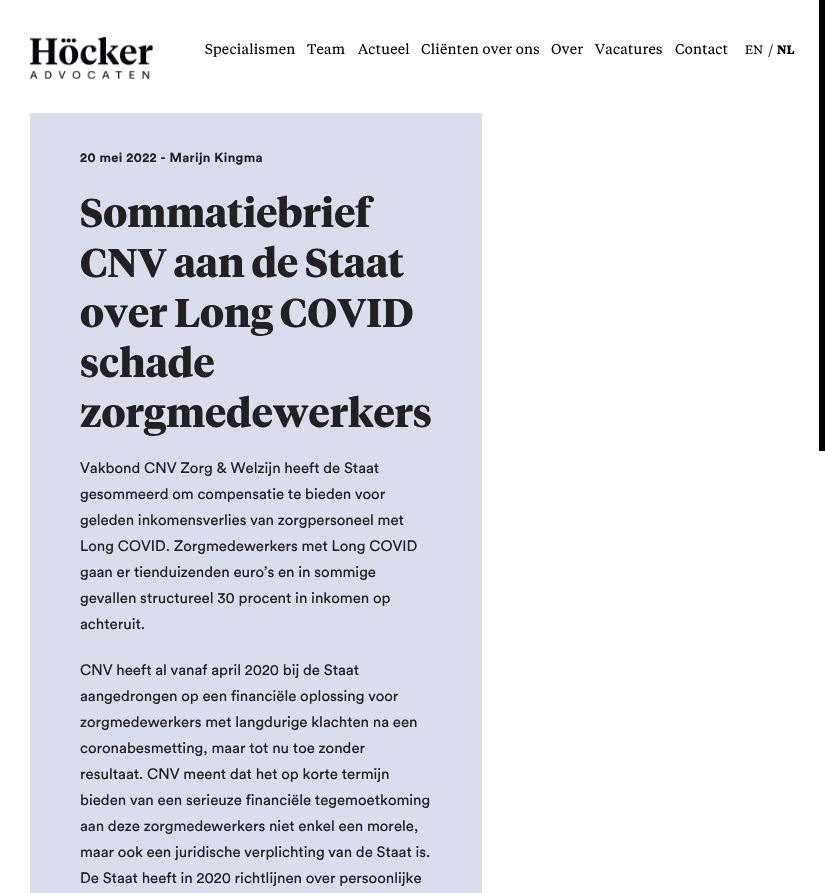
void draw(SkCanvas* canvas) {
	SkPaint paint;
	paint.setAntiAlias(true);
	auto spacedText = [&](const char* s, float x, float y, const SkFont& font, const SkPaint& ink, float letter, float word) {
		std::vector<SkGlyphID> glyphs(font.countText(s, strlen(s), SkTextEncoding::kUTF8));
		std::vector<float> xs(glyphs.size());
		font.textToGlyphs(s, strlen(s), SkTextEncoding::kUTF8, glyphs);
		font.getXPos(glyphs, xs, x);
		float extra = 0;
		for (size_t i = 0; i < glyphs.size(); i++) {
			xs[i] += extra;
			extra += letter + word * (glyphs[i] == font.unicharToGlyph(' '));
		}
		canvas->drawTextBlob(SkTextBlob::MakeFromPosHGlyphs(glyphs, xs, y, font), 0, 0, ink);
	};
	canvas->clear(0xffffffff);
	canvas->drawImageRect(SkImages::DeferredFromEncodedData(SkData::MakeFromFileName("img1.png")), SkRect::MakeXYWH(30, 36, 123, 43), SkSamplingOptions());
	SkFont f1(fontMgr->matchFamilyStyle("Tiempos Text", SkFontStyle::Normal()), 14);
	f1.setSubpixel(true);
	paint.setColor(0xff000000);
	spacedText("Specialismen", 205, 54, f1, paint, 0.25, 0);
	spacedText("Team", 307, 54, f1, paint, 0.25, 0);
	spacedText("Actueel", 358, 54, f1, paint, 0.25, 0);
	spacedText("Cliënten over ons", 421, 54, f1, paint, 0.25, 0);
	spacedText("Over", 551, 54, f1, paint, 0.25, 0);
	spacedText("Vacatures", 595, 54, f1, paint, 0.25, 0);
	spacedText("Contact", 675, 54, f1, paint, 0.25, 0);
	SkFont f2(fontMgr->matchFamilyStyle("Tiempos Text", SkFontStyle::Normal()), 12);
	f2.setSubpixel(true);
	spacedText("EN", 745, 54, f2, paint, 0.25, 0);
	paint.setColor(0xff212121);
	spacedText("/", 768, 55, f1, paint, 0.25, 0);
	SkFont f3(fontMgr->matchFamilyStyle("Tiempos Text", SkFontStyle::Bold()), 12);
	f3.setSubpixel(true);
	paint.setColor(0xff000000);
	spacedText("NL", 777, 54, f3, paint, 0.25, 0);
	canvas->drawRect(SkRect::MakeXYWH(819, 0, 6, 451), paint);
	paint.setColor(0xffd9ddec);
	canvas->drawRect(SkRect::MakeXYWH(30, 113, 452, 780), paint);
	SkFont f4(fontMgr->matchFamilyStyle("Circular", SkFontStyle::Bold()), 13);
	f4.setSubpixel(true);
	paint.setColor(0xff212121);
	spacedText("20 mei 2022 - Marijn Kingma", 80, 162, f4, paint, 0.35, 0);
	SkFont f5(fontMgr->matchFamilyStyle("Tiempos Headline", SkFontStyle::Bold()), 40);
	f5.setSubpixel(true);
	canvas->drawString("Sommatiebrief", 80, 227, f5, paint);
	canvas->drawString("CNV aan de Staat", 80, 277, f5, paint);
	canvas->drawString("over Long COVID", 80, 327, f5, paint);
	canvas->drawString("schade", 80, 377, f5, paint);
	canvas->drawString("zorgmedewerkers", 80, 427, f5, paint);
	SkFont f6(fontMgr->matchFamilyStyle("Circular", SkFontStyle::Normal()), 15);
	f6.setSubpixel(true);
	canvas->drawString("Vakbond CNV Zorg & Welzijn heeft de Staat", 80, 473, f6, paint);
	canvas->drawString("gesommeerd om compensatie te bieden voor", 80, 499, f6, paint);
	canvas->drawString("geleden inkomensverlies van zorgpersoneel met", 80, 525, f6, paint);
	canvas->drawString("Long COVID. Zorgmedewerkers met Long COVID", 80, 551, f6, paint);
	canvas->drawString("gaan er tienduizenden euro’s en in sommige", 80, 577, f6, paint);
	canvas->drawString("gevallen structureel 30 procent in inkomen op", 80, 603, f6, paint);
	canvas->drawString("achteruit.", 80, 629, f6, paint);
	canvas->drawString("CNV heeft al vanaf april 2020 bij de Staat", 80, 675, f6, paint);
	canvas->drawString("aangedrongen op een financiële oplossing voor", 80, 701, f6, paint);
	canvas->drawString("zorgmedewerkers met langdurige klachten na een", 80, 727, f6, paint);
	canvas->drawString("coronabesmetting, maar tot nu toe zonder", 80, 753, f6, paint);
	canvas->drawString("resultaat. CNV meent dat het op korte termijn", 80, 779, f6, paint);
	canvas->drawString("bieden van een serieuze financiële tegemoetkoming", 80, 805, f6, paint);
	canvas->drawString("aan deze zorgmedewerkers niet enkel een morele,", 80, 831, f6, paint);
	canvas->drawString("maar ook een juridische verplichting van de Staat is.", 80, 857, f6, paint);
	canvas->drawString("De Staat heeft in 2020 richtlijnen over persoonlijke", 80, 883, f6, paint);
}
